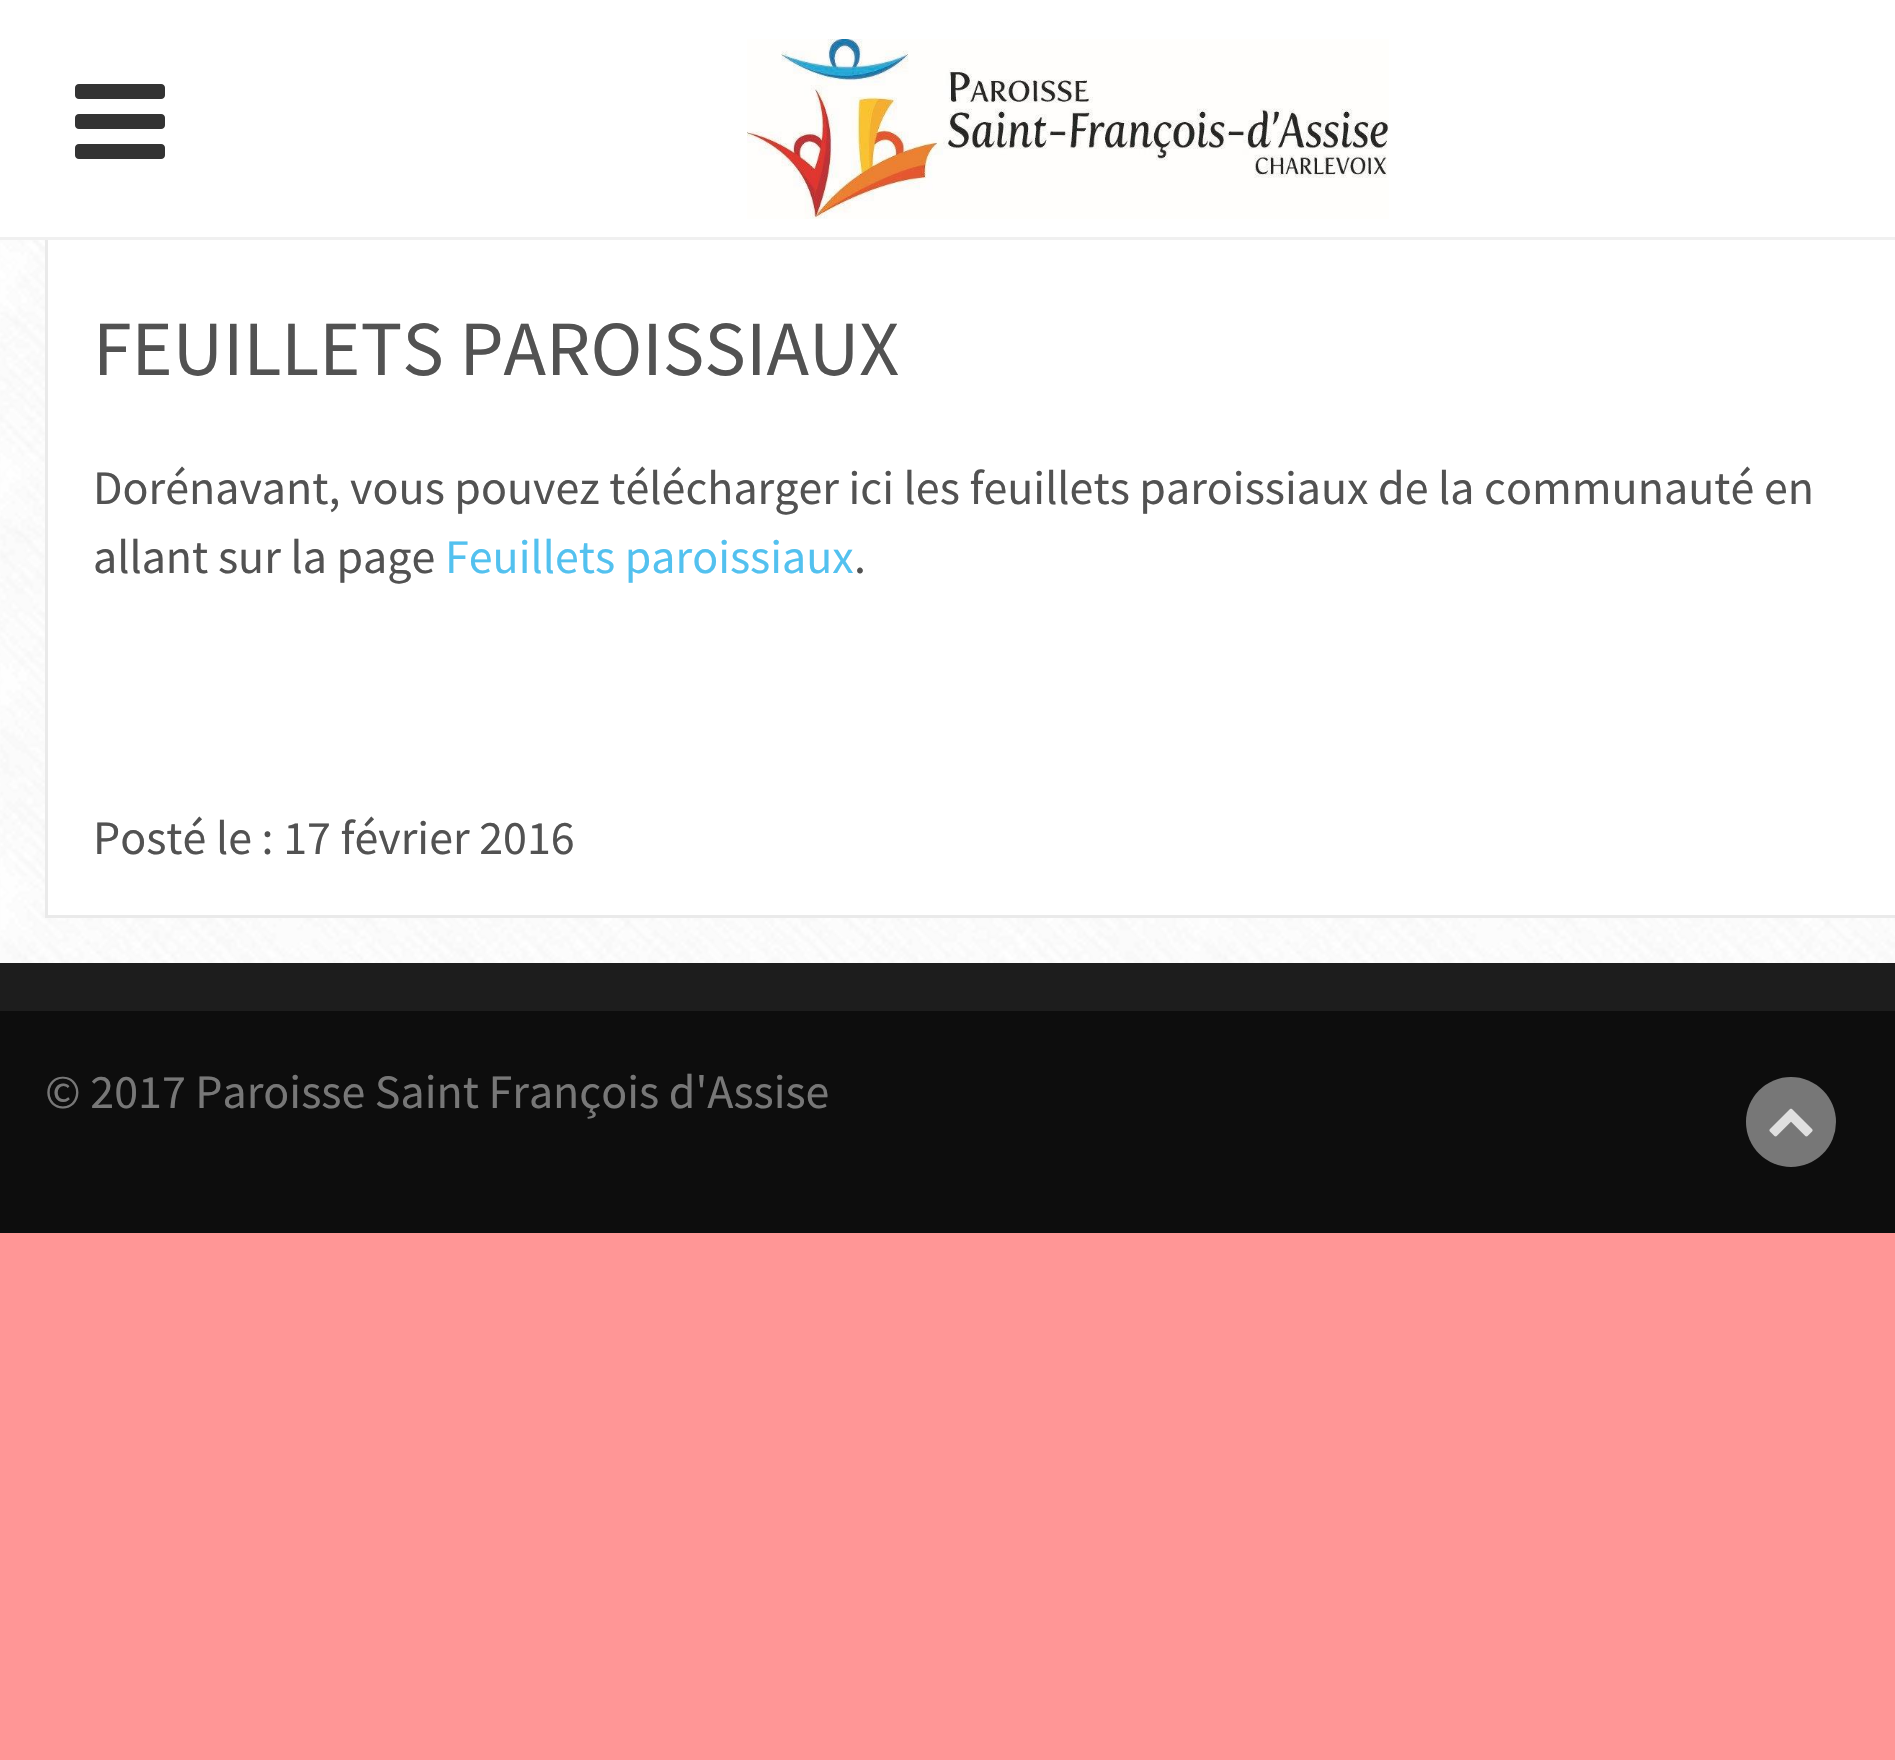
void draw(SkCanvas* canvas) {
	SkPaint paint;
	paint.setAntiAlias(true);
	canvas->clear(0xffff9696);
	canvas->drawImageRect(SkImages::DeferredFromEncodedData(SkData::MakeFromFileName("img3.png")), SkRect::MakeXYWH(0, 240, 1895, 723), SkSamplingOptions());
	paint.setColor(0xffffffff);
	canvas->drawRect(SkRect::MakeXYWH(48, 240, 1847, 675), paint);
	paint.setStroke(true);
	paint.setStrokeWidth(3);
	paint.setColor(0xffeaeaea);
	canvas->drawRect(SkRect::MakeXYWH(46.5, 226.5, 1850, 690), paint);
	paint.setStroke(false);
	paint.setColor(0xffffffff);
	canvas->drawRect(SkRect::MakeXYWH(0, 0, 1895, 237), paint);
	paint.setColor(0xfff0f0f0);
	canvas->drawRect(SkRect::MakeXYWH(0, 237, 1895, 3), paint);
	canvas->drawImageRect(SkImages::DeferredFromEncodedData(SkData::MakeFromFileName("img1.png")), SkRect::MakeXYWH(75, 84, 90, 75), SkSamplingOptions());
	canvas->drawImageRect(SkImages::DeferredFromEncodedData(SkData::MakeFromFileName("img2.png")), SkRect::MakeXYWH(747, 39, 642, 180), SkSamplingOptions());
	SkFont f1(fontMgr->matchFamilyStyle("Source Sans Pro", SkFontStyle::Normal()), 78);
	f1.setSubpixel(true);
	paint.setColor(0xff525252);
	canvas->drawString("FEUILLETS PAROISSIAUX", 93, 375, f1, paint);
	SkFont f2(fontMgr->matchFamilyStyle("Source Sans Pro", SkFontStyle::Normal()), 48);
	f2.setSubpixel(true);
	canvas->drawString("Dorénavant, vous pouvez télécharger ici les feuillets paroissiaux de la communauté en", 93, 504, f2, paint);
	canvas->drawString("allant sur la page", 93, 573, f2, paint);
	paint.setColor(0xff53c1ef);
	canvas->drawString("Feuillets paroissiaux", 445, 573, f2, paint);
	paint.setColor(0xff525252);
	canvas->drawString(".", 854, 573, f2, paint);
	canvas->drawString("Posté le : 17 février 2016", 93, 854, f2, paint);
	paint.setColor(0xff1d1d1d);
	canvas->drawRect(SkRect::MakeXYWH(0, 963, 1895, 48), paint);
	paint.setColor(0xff0d0d0d);
	canvas->drawRect(SkRect::MakeXYWH(0, 1011, 1895, 222), paint);
	paint.setColor(0xff777777);
	canvas->drawString("© 2017 Paroisse Saint François d'Assise", 45, 1108, f2, paint);
	canvas->drawCircle(1791, 1122, 45, paint);
	canvas->drawImageRect(SkImages::DeferredFromEncodedData(SkData::MakeFromFileName("img4.png")), SkRect::MakeXYWH(1769, 1108, 44, 29), SkSamplingOptions());
}
